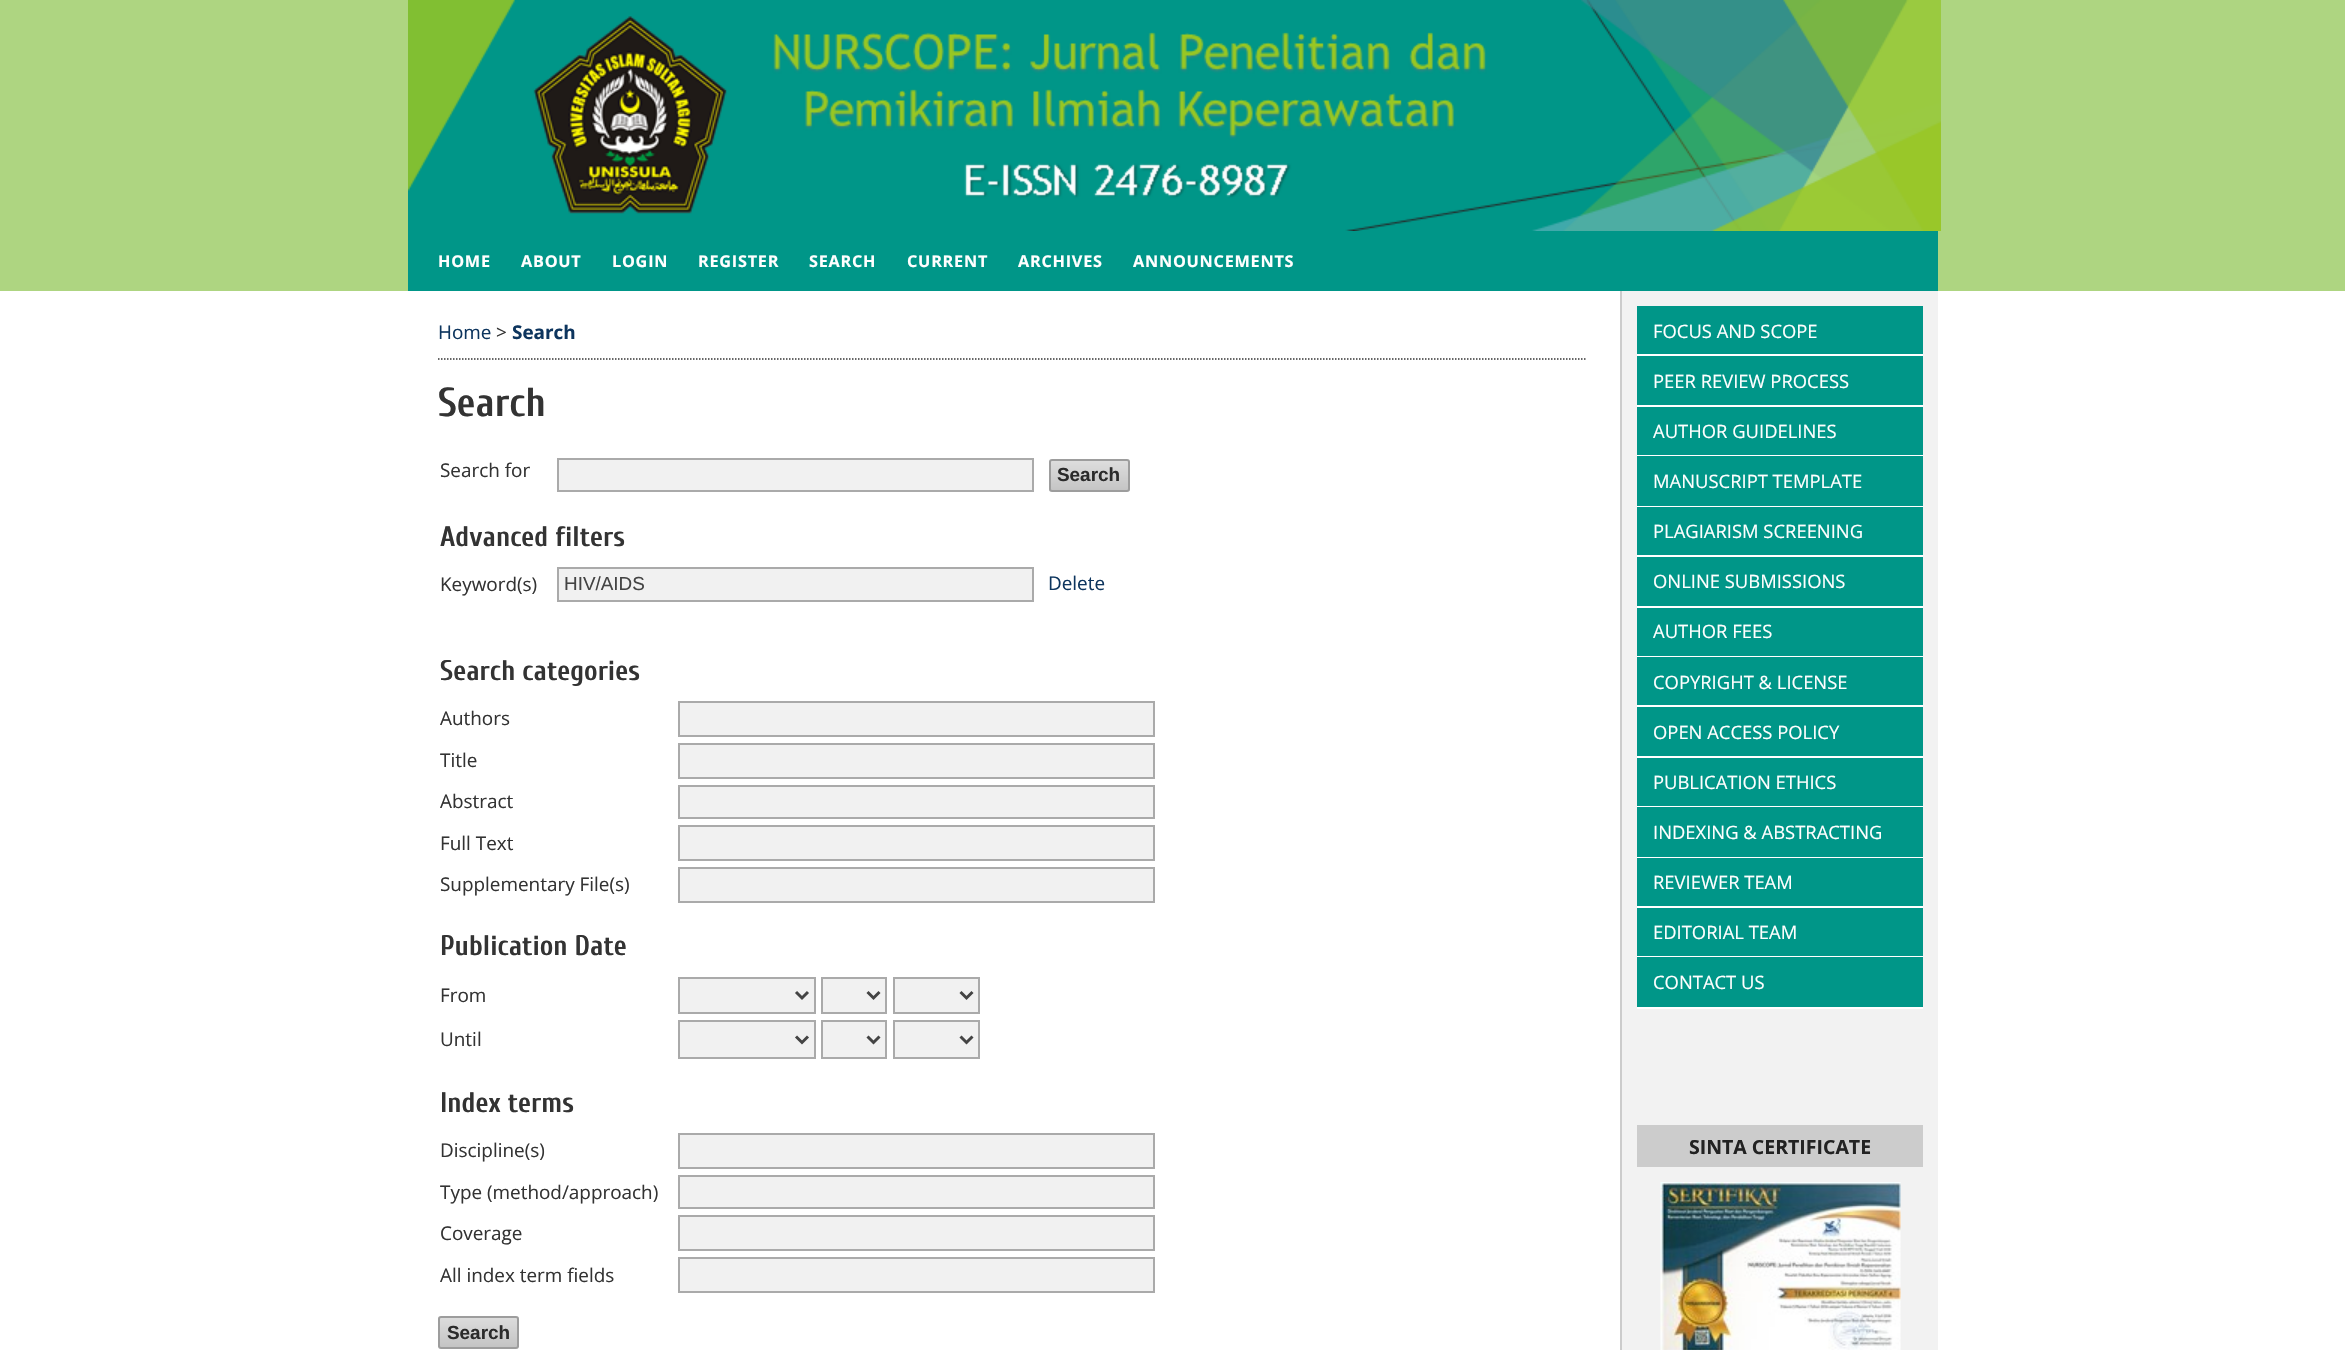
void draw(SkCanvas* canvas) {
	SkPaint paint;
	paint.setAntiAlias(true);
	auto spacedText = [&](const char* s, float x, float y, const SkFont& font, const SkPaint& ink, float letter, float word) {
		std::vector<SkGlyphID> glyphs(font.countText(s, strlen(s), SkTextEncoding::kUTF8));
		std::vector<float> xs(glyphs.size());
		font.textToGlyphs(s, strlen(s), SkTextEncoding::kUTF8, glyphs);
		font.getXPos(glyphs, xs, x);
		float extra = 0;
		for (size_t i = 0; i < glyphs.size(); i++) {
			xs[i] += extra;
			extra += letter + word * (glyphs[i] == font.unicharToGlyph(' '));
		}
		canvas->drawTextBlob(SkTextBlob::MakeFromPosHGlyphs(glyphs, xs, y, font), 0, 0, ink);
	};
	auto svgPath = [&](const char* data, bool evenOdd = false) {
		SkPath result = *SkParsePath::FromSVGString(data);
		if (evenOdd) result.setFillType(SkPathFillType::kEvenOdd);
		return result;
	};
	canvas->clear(0xffffffff);
	paint.setColor(0xffaed581);
	canvas->drawRect(SkRect::MakeXYWH(0, 0, 2345, 291), paint);
	canvas->drawImageRect(SkImages::DeferredFromEncodedData(SkData::MakeFromFileName("img1.png")), SkRect::MakeXYWH(408, 0, 1533, 231), SkSamplingOptions());
	paint.setColor(0xff009688);
	canvas->drawRect(SkRect::MakeXYWH(408, 231, 1530, 60), paint);
	SkFont f1(fontMgr->matchFamilyStyle("Open Sans", SkFontStyle::Bold()), 16.25);
	f1.setSubpixel(true);
	paint.setColor(0xffffffff);
	spacedText("HOME", 438, 267, f1, paint, 0.75, 0);
	spacedText("ABOUT", 521, 267, f1, paint, 0.75, 0);
	spacedText("LOGIN", 612, 267, f1, paint, 0.75, 0);
	spacedText("REGISTER", 698, 267, f1, paint, 0.75, 0);
	spacedText("SEARCH", 809, 267, f1, paint, 0.75, 0);
	spacedText("CURRENT", 907, 267, f1, paint, 0.75, 0);
	spacedText("ARCHIVES", 1018, 267, f1, paint, 0.75, 0);
	spacedText("ANNOUNCEMENTS", 1133, 267, f1, paint, 0.75, 0);
	paint.setStroke(true);
	paint.setStrokeWidth(1.5);
	paint.setColor(0xff333333);
	paint.setPathEffect(SkDashPathEffect::Make({{1.5f, 1.5f}}, 0));
	canvas->drawPath(svgPath("M438 359H1585.5"), paint);
	paint.setPathEffect(nullptr);
	SkFont f2(fontMgr->matchFamilyStyle("Open Sans", SkFontStyle::Normal()), 18.9);
	f2.setSubpixel(true);
	paint.setStroke(false);
	paint.setColor(0xff0d355e);
	canvas->drawString("Home", 438, 339, f2, paint);
	paint.setColor(0xff333333);
	canvas->drawString(">", 496, 339, f2, paint);
	SkFont f3(fontMgr->matchFamilyStyle("Open Sans", SkFontStyle::Bold()), 18.9);
	f3.setSubpixel(true);
	paint.setColor(0xff0d355e);
	canvas->drawString("Search", 512, 339, f3, paint);
	SkFont f4(fontMgr->matchFamilyStyle("Cuprum", SkFontStyle::Bold()), 40.5);
	f4.setSubpixel(true);
	paint.setColor(0xff333333);
	canvas->drawString("Search", 438, 416, f4, paint);
	canvas->drawString("Search for", 440, 477, f2, paint);
	paint.setColor(0xfff1f1f1);
	canvas->drawRect(SkRect::MakeXYWH(558, 459, 475, 32), paint);
	paint.setStroke(true);
	paint.setStrokeWidth(2);
	paint.setColor(0xffaaaaaa);
	canvas->drawRect(SkRect::MakeXYWH(558, 459, 475, 32), paint);
	canvas->save();
	canvas->clipPath(svgPath("M1052 459H1127C1128.5 459 1130 460.5 1130 462V489C1130 490.5 1128.5 492 1127 492H1052C1050.5 492 1049 490.5 1049 489V462C1049 460.5 1050.5 459 1052 459Z"), true);
	paint.setStroke(false);
	{
		const SkColor colors[] = {0xffdddddd, 0xffc4c4c4};
		const float stops[] = {0, 1};
		const SkPoint ends[] = {{1089, 461}, {1089, 491}};
		paint.setShader(SkGradientShader::MakeLinear(ends, colors, stops, 2, SkTileMode::kClamp));
		paint.setAlpha(255);
	}
	canvas->drawRect(SkRect::MakeXYWH(1049, 461, 81, 30), paint);
	canvas->restore();
	paint.setStroke(true);
	paint.setShader(nullptr);
	paint.setColor(0xff9d9d9d);
	canvas->drawRoundRect(SkRect::MakeXYWH(1050, 460, 79, 31), 2, 2, paint);
	SkFont f5(fontMgr->matchFamilyStyle("Liberation Sans", SkFontStyle::Bold()), 18.9);
	f5.setSubpixel(true);
	paint.setStroke(false);
	paint.setColor(0xff2b2b2b);
	canvas->drawString("Search", 1057, 481, f5, paint);
	SkFont f6(fontMgr->matchFamilyStyle("Cuprum", SkFontStyle::Bold()), 28.25);
	f6.setSubpixel(true);
	paint.setColor(0xff333333);
	canvas->drawString("Advanced filters", 440, 546, f6, paint);
	canvas->drawString("Keyword(s)", 440, 591, f2, paint);
	paint.setColor(0xfff1f1f1);
	canvas->drawRect(SkRect::MakeXYWH(558, 568, 475, 33), paint);
	paint.setStroke(true);
	paint.setColor(0xffaaaaaa);
	canvas->drawRect(SkRect::MakeXYWH(558, 568, 475, 33), paint);
	SkFont f7(fontMgr->matchFamilyStyle("Liberation Sans", SkFontStyle::Normal()), 18.9);
	f7.setSubpixel(true);
	paint.setStroke(false);
	paint.setColor(0xff444444);
	canvas->drawString("HIV/AIDS", 564, 590, f7, paint);
	paint.setColor(0xff0d355e);
	canvas->drawString("Delete", 1048, 590, f2, paint);
	paint.setColor(0xff333333);
	canvas->drawString("Search categories", 440, 680, f6, paint);
	canvas->drawString("Authors", 440, 725, f2, paint);
	paint.setColor(0xfff1f1f1);
	canvas->drawRect(SkRect::MakeXYWH(679, 702, 475, 34), paint);
	paint.setStroke(true);
	paint.setColor(0xffaaaaaa);
	canvas->drawRect(SkRect::MakeXYWH(679, 702, 475, 34), paint);
	paint.setStroke(false);
	paint.setColor(0xff333333);
	canvas->drawString("Title", 440, 767, f2, paint);
	paint.setColor(0xfff1f1f1);
	canvas->drawRect(SkRect::MakeXYWH(679, 744, 475, 34), paint);
	paint.setStroke(true);
	paint.setColor(0xffaaaaaa);
	canvas->drawRect(SkRect::MakeXYWH(679, 744, 475, 34), paint);
	paint.setStroke(false);
	paint.setColor(0xff333333);
	canvas->drawString("Abstract", 440, 808, f2, paint);
	paint.setColor(0xfff1f1f1);
	canvas->drawRect(SkRect::MakeXYWH(679, 786, 475, 32), paint);
	paint.setStroke(true);
	paint.setColor(0xffaaaaaa);
	canvas->drawRect(SkRect::MakeXYWH(679, 786, 475, 32), paint);
	paint.setStroke(false);
	paint.setColor(0xff333333);
	canvas->drawString("Full Text", 440, 850, f2, paint);
	paint.setColor(0xfff1f1f1);
	canvas->drawRect(SkRect::MakeXYWH(679, 826, 475, 34), paint);
	paint.setStroke(true);
	paint.setColor(0xffaaaaaa);
	canvas->drawRect(SkRect::MakeXYWH(679, 826, 475, 34), paint);
	paint.setStroke(false);
	paint.setColor(0xff333333);
	canvas->drawString("Supplementary File(s)", 440, 891, f2, paint);
	paint.setColor(0xfff1f1f1);
	canvas->drawRect(SkRect::MakeXYWH(679, 868, 475, 34), paint);
	paint.setStroke(true);
	paint.setColor(0xffaaaaaa);
	canvas->drawRect(SkRect::MakeXYWH(679, 868, 475, 34), paint);
	paint.setStroke(false);
	paint.setColor(0xff333333);
	canvas->drawString("Publication Date", 440, 955, f6, paint);
	canvas->drawString("From", 440, 1002, f2, paint);
	paint.setColor(0xfff1f1f1);
	canvas->drawRect(SkRect::MakeXYWH(679, 978, 136, 35), paint);
	paint.setStroke(true);
	paint.setColor(0xffaaaaaa);
	canvas->drawRect(SkRect::MakeXYWH(679, 978, 136, 35), paint);
	paint.setStrokeWidth(3);
	paint.setColor(0xff444444);
	canvas->drawPath(svgPath("M796 992L802 998L808 992"), paint);
	paint.setStroke(false);
	paint.setColor(0xfff1f1f1);
	canvas->drawRect(SkRect::MakeXYWH(822, 978, 64, 35), paint);
	paint.setStroke(true);
	paint.setStrokeWidth(2);
	paint.setColor(0xffaaaaaa);
	canvas->drawRect(SkRect::MakeXYWH(822, 978, 64, 35), paint);
	paint.setStrokeWidth(3);
	paint.setColor(0xff444444);
	canvas->drawPath(svgPath("M867.5 992L873.5 998L879.5 992"), paint);
	paint.setStroke(false);
	paint.setColor(0xfff1f1f1);
	canvas->drawRect(SkRect::MakeXYWH(894, 978, 85, 35), paint);
	paint.setStroke(true);
	paint.setStrokeWidth(2);
	paint.setColor(0xffaaaaaa);
	canvas->drawRect(SkRect::MakeXYWH(894, 978, 85, 35), paint);
	paint.setStrokeWidth(3);
	paint.setColor(0xff444444);
	canvas->drawPath(svgPath("M960.5 992L966.5 998L972.5 992"), paint);
	paint.setStroke(false);
	paint.setColor(0xff333333);
	canvas->drawString("Until", 440, 1046, f2, paint);
	paint.setColor(0xfff1f1f1);
	canvas->drawRect(SkRect::MakeXYWH(679, 1021, 136, 37), paint);
	paint.setStroke(true);
	paint.setStrokeWidth(2);
	paint.setColor(0xffaaaaaa);
	canvas->drawRect(SkRect::MakeXYWH(679, 1021, 136, 37), paint);
	paint.setStrokeWidth(3);
	paint.setColor(0xff444444);
	canvas->drawPath(svgPath("M796 1036.5L802 1042.5L808 1036.5"), paint);
	paint.setStroke(false);
	paint.setColor(0xfff1f1f1);
	canvas->drawRect(SkRect::MakeXYWH(822, 1021, 64, 37), paint);
	paint.setStroke(true);
	paint.setStrokeWidth(2);
	paint.setColor(0xffaaaaaa);
	canvas->drawRect(SkRect::MakeXYWH(822, 1021, 64, 37), paint);
	paint.setStrokeWidth(3);
	paint.setColor(0xff444444);
	canvas->drawPath(svgPath("M867.5 1036.5L873.5 1042.5L879.5 1036.5"), paint);
	paint.setStroke(false);
	paint.setColor(0xfff1f1f1);
	canvas->drawRect(SkRect::MakeXYWH(894, 1021, 85, 37), paint);
	paint.setStroke(true);
	paint.setStrokeWidth(2);
	paint.setColor(0xffaaaaaa);
	canvas->drawRect(SkRect::MakeXYWH(894, 1021, 85, 37), paint);
	paint.setStrokeWidth(3);
	paint.setColor(0xff444444);
	canvas->drawPath(svgPath("M960.5 1036.5L966.5 1042.5L972.5 1036.5"), paint);
	paint.setStroke(false);
	paint.setColor(0xff333333);
	canvas->drawString("Index terms", 440, 1112, f6, paint);
	canvas->drawString("Discipline(s)", 440, 1157, f2, paint);
	paint.setColor(0xfff1f1f1);
	canvas->drawRect(SkRect::MakeXYWH(679, 1134, 475, 34), paint);
	paint.setStroke(true);
	paint.setStrokeWidth(2);
	paint.setColor(0xffaaaaaa);
	canvas->drawRect(SkRect::MakeXYWH(679, 1134, 475, 34), paint);
	paint.setStroke(false);
	paint.setColor(0xff333333);
	canvas->drawString("Type (method/approach)", 440, 1199, f2, paint);
	paint.setColor(0xfff1f1f1);
	canvas->drawRect(SkRect::MakeXYWH(679, 1176, 475, 32), paint);
	paint.setStroke(true);
	paint.setColor(0xffaaaaaa);
	canvas->drawRect(SkRect::MakeXYWH(679, 1176, 475, 32), paint);
	paint.setStroke(false);
	paint.setColor(0xff333333);
	canvas->drawString("Coverage", 440, 1240, f2, paint);
	paint.setColor(0xfff1f1f1);
	canvas->drawRect(SkRect::MakeXYWH(679, 1216, 475, 34), paint);
	paint.setStroke(true);
	paint.setColor(0xffaaaaaa);
	canvas->drawRect(SkRect::MakeXYWH(679, 1216, 475, 34), paint);
	paint.setStroke(false);
	paint.setColor(0xff333333);
	canvas->drawString("All index term fields", 440, 1282, f2, paint);
	paint.setColor(0xfff1f1f1);
	canvas->drawRect(SkRect::MakeXYWH(679, 1258, 475, 34), paint);
	paint.setStroke(true);
	paint.setColor(0xffaaaaaa);
	canvas->drawRect(SkRect::MakeXYWH(679, 1258, 475, 34), paint);
	canvas->save();
	canvas->clipPath(svgPath("M441 1316H516C517.5 1316 519 1317.5 519 1319V1346C519 1347.5 517.5 1349 516 1349H441C439.5 1349 438 1347.5 438 1346V1319C438 1317.5 439.5 1316 441 1316Z"), true);
	paint.setStroke(false);
	{
		const SkColor colors[] = {0xffdddddd, 0xffc4c4c4};
		const float stops[] = {0, 1};
		const SkPoint ends[] = {{479, 1317}, {479, 1347}};
		paint.setShader(SkGradientShader::MakeLinear(ends, colors, stops, 2, SkTileMode::kClamp));
		paint.setAlpha(255);
	}
	canvas->drawRect(SkRect::MakeXYWH(438, 1317, 81, 30), paint);
	canvas->restore();
	paint.setStroke(true);
	paint.setShader(nullptr);
	paint.setColor(0xff9d9d9d);
	canvas->drawRoundRect(SkRect::MakeXYWH(439, 1317, 79, 31), 2, 2, paint);
	paint.setStroke(false);
	paint.setColor(0xff2b2b2b);
	canvas->drawString("Search", 447, 1339, f5, paint);
	paint.setColor(0xfff2f2f2);
	canvas->drawRect(SkRect::MakeXYWH(1622, 291, 316, 1059), paint);
	paint.setColor(0xffcccccc);
	canvas->drawRect(SkRect::MakeXYWH(1620, 291, 2, 1059), paint);
	paint.setColor(0xff009688);
	canvas->drawRect(SkRect::MakeXYWH(1637, 306, 286, 48), paint);
	paint.setColor(0xffffffff);
	canvas->drawRect(SkRect::MakeXYWH(1637, 354, 286, 2), paint);
	SkFont f8(fontMgr->matchFamilyStyle("Open Sans", SkFontStyle::Normal()), 18.4);
	f8.setSubpixel(true);
	canvas->drawString("FOCUS AND SCOPE", 1653, 338, f8, paint);
	paint.setColor(0xff009688);
	canvas->drawRect(SkRect::MakeXYWH(1637, 356, 286, 49), paint);
	paint.setColor(0xffffffff);
	canvas->drawRect(SkRect::MakeXYWH(1637, 405, 286, 2), paint);
	canvas->drawString("PEER REVIEW PROCESS", 1653, 388, f8, paint);
	paint.setColor(0xff009688);
	canvas->drawRect(SkRect::MakeXYWH(1637, 407, 286, 48), paint);
	paint.setColor(0xffffffff);
	canvas->drawRect(SkRect::MakeXYWH(1637, 455, 286, 1), paint);
	canvas->drawString("AUTHOR GUIDELINES", 1653, 438, f8, paint);
	paint.setColor(0xff009688);
	canvas->drawRect(SkRect::MakeXYWH(1637, 456, 286, 50), paint);
	paint.setColor(0xffffffff);
	canvas->drawRect(SkRect::MakeXYWH(1637, 506, 286, 1), paint);
	canvas->drawString("MANUSCRIPT TEMPLATE", 1653, 488, f8, paint);
	paint.setColor(0xff009688);
	canvas->drawRect(SkRect::MakeXYWH(1637, 507, 286, 48), paint);
	paint.setColor(0xffffffff);
	canvas->drawRect(SkRect::MakeXYWH(1637, 555, 286, 2), paint);
	canvas->drawString("PLAGIARISM SCREENING", 1653, 538, f8, paint);
	paint.setColor(0xff009688);
	canvas->drawRect(SkRect::MakeXYWH(1637, 557, 286, 49), paint);
	paint.setColor(0xffffffff);
	canvas->drawRect(SkRect::MakeXYWH(1637, 606, 286, 2), paint);
	canvas->drawString("ONLINE SUBMISSIONS", 1653, 588, f8, paint);
	paint.setColor(0xff009688);
	canvas->drawRect(SkRect::MakeXYWH(1637, 608, 286, 48), paint);
	paint.setColor(0xffffffff);
	canvas->drawRect(SkRect::MakeXYWH(1637, 656, 286, 1), paint);
	canvas->drawString("AUTHOR FEES", 1653, 638, f8, paint);
	paint.setColor(0xff009688);
	canvas->drawRect(SkRect::MakeXYWH(1637, 657, 286, 48), paint);
	paint.setColor(0xffffffff);
	canvas->drawRect(SkRect::MakeXYWH(1637, 705, 286, 2), paint);
	canvas->drawString("COPYRIGHT & LICENSE", 1653, 689, f8, paint);
	paint.setColor(0xff009688);
	canvas->drawRect(SkRect::MakeXYWH(1637, 707, 286, 49), paint);
	paint.setColor(0xffffffff);
	canvas->drawRect(SkRect::MakeXYWH(1637, 756, 286, 2), paint);
	canvas->drawString("OPEN ACCESS POLICY", 1653, 739, f8, paint);
	paint.setColor(0xff009688);
	canvas->drawRect(SkRect::MakeXYWH(1637, 758, 286, 48), paint);
	paint.setColor(0xffffffff);
	canvas->drawRect(SkRect::MakeXYWH(1637, 806, 286, 1), paint);
	canvas->drawString("PUBLICATION ETHICS", 1653, 789, f8, paint);
	paint.setColor(0xff009688);
	canvas->drawRect(SkRect::MakeXYWH(1637, 807, 286, 50), paint);
	paint.setColor(0xffffffff);
	canvas->drawRect(SkRect::MakeXYWH(1637, 857, 286, 1), paint);
	canvas->drawString("INDEXING & ABSTRACTING", 1653, 839, f8, paint);
	paint.setColor(0xff009688);
	canvas->drawRect(SkRect::MakeXYWH(1637, 858, 286, 48), paint);
	paint.setColor(0xffffffff);
	canvas->drawRect(SkRect::MakeXYWH(1637, 906, 286, 2), paint);
	canvas->drawString("REVIEWER TEAM", 1653, 889, f8, paint);
	paint.setColor(0xff009688);
	canvas->drawRect(SkRect::MakeXYWH(1637, 908, 286, 48), paint);
	paint.setColor(0xffffffff);
	canvas->drawRect(SkRect::MakeXYWH(1637, 956, 286, 1), paint);
	canvas->drawString("EDITORIAL TEAM", 1653, 939, f8, paint);
	paint.setColor(0xff009688);
	canvas->drawRect(SkRect::MakeXYWH(1637, 957, 286, 50), paint);
	paint.setColor(0xffffffff);
	canvas->drawRect(SkRect::MakeXYWH(1637, 1007, 286, 2), paint);
	canvas->drawString("CONTACT US", 1653, 989, f8, paint);
	paint.setColor(0xffcccccc);
	canvas->drawRect(SkRect::MakeXYWH(1637, 1125, 286, 42), paint);
	SkFont f9(fontMgr->matchFamilyStyle("Open Sans", SkFontStyle::Bold()), 19.5);
	f9.setSubpixel(true);
	paint.setColor(0xff222222);
	canvas->drawString("SINTA CERTIFICATE", 1689, 1154, f9, paint);
	canvas->drawImageRect(SkImages::DeferredFromEncodedData(SkData::MakeFromFileName("img2.png")), SkRect::MakeXYWH(1660, 1182, 241, 168), SkSamplingOptions());
}
